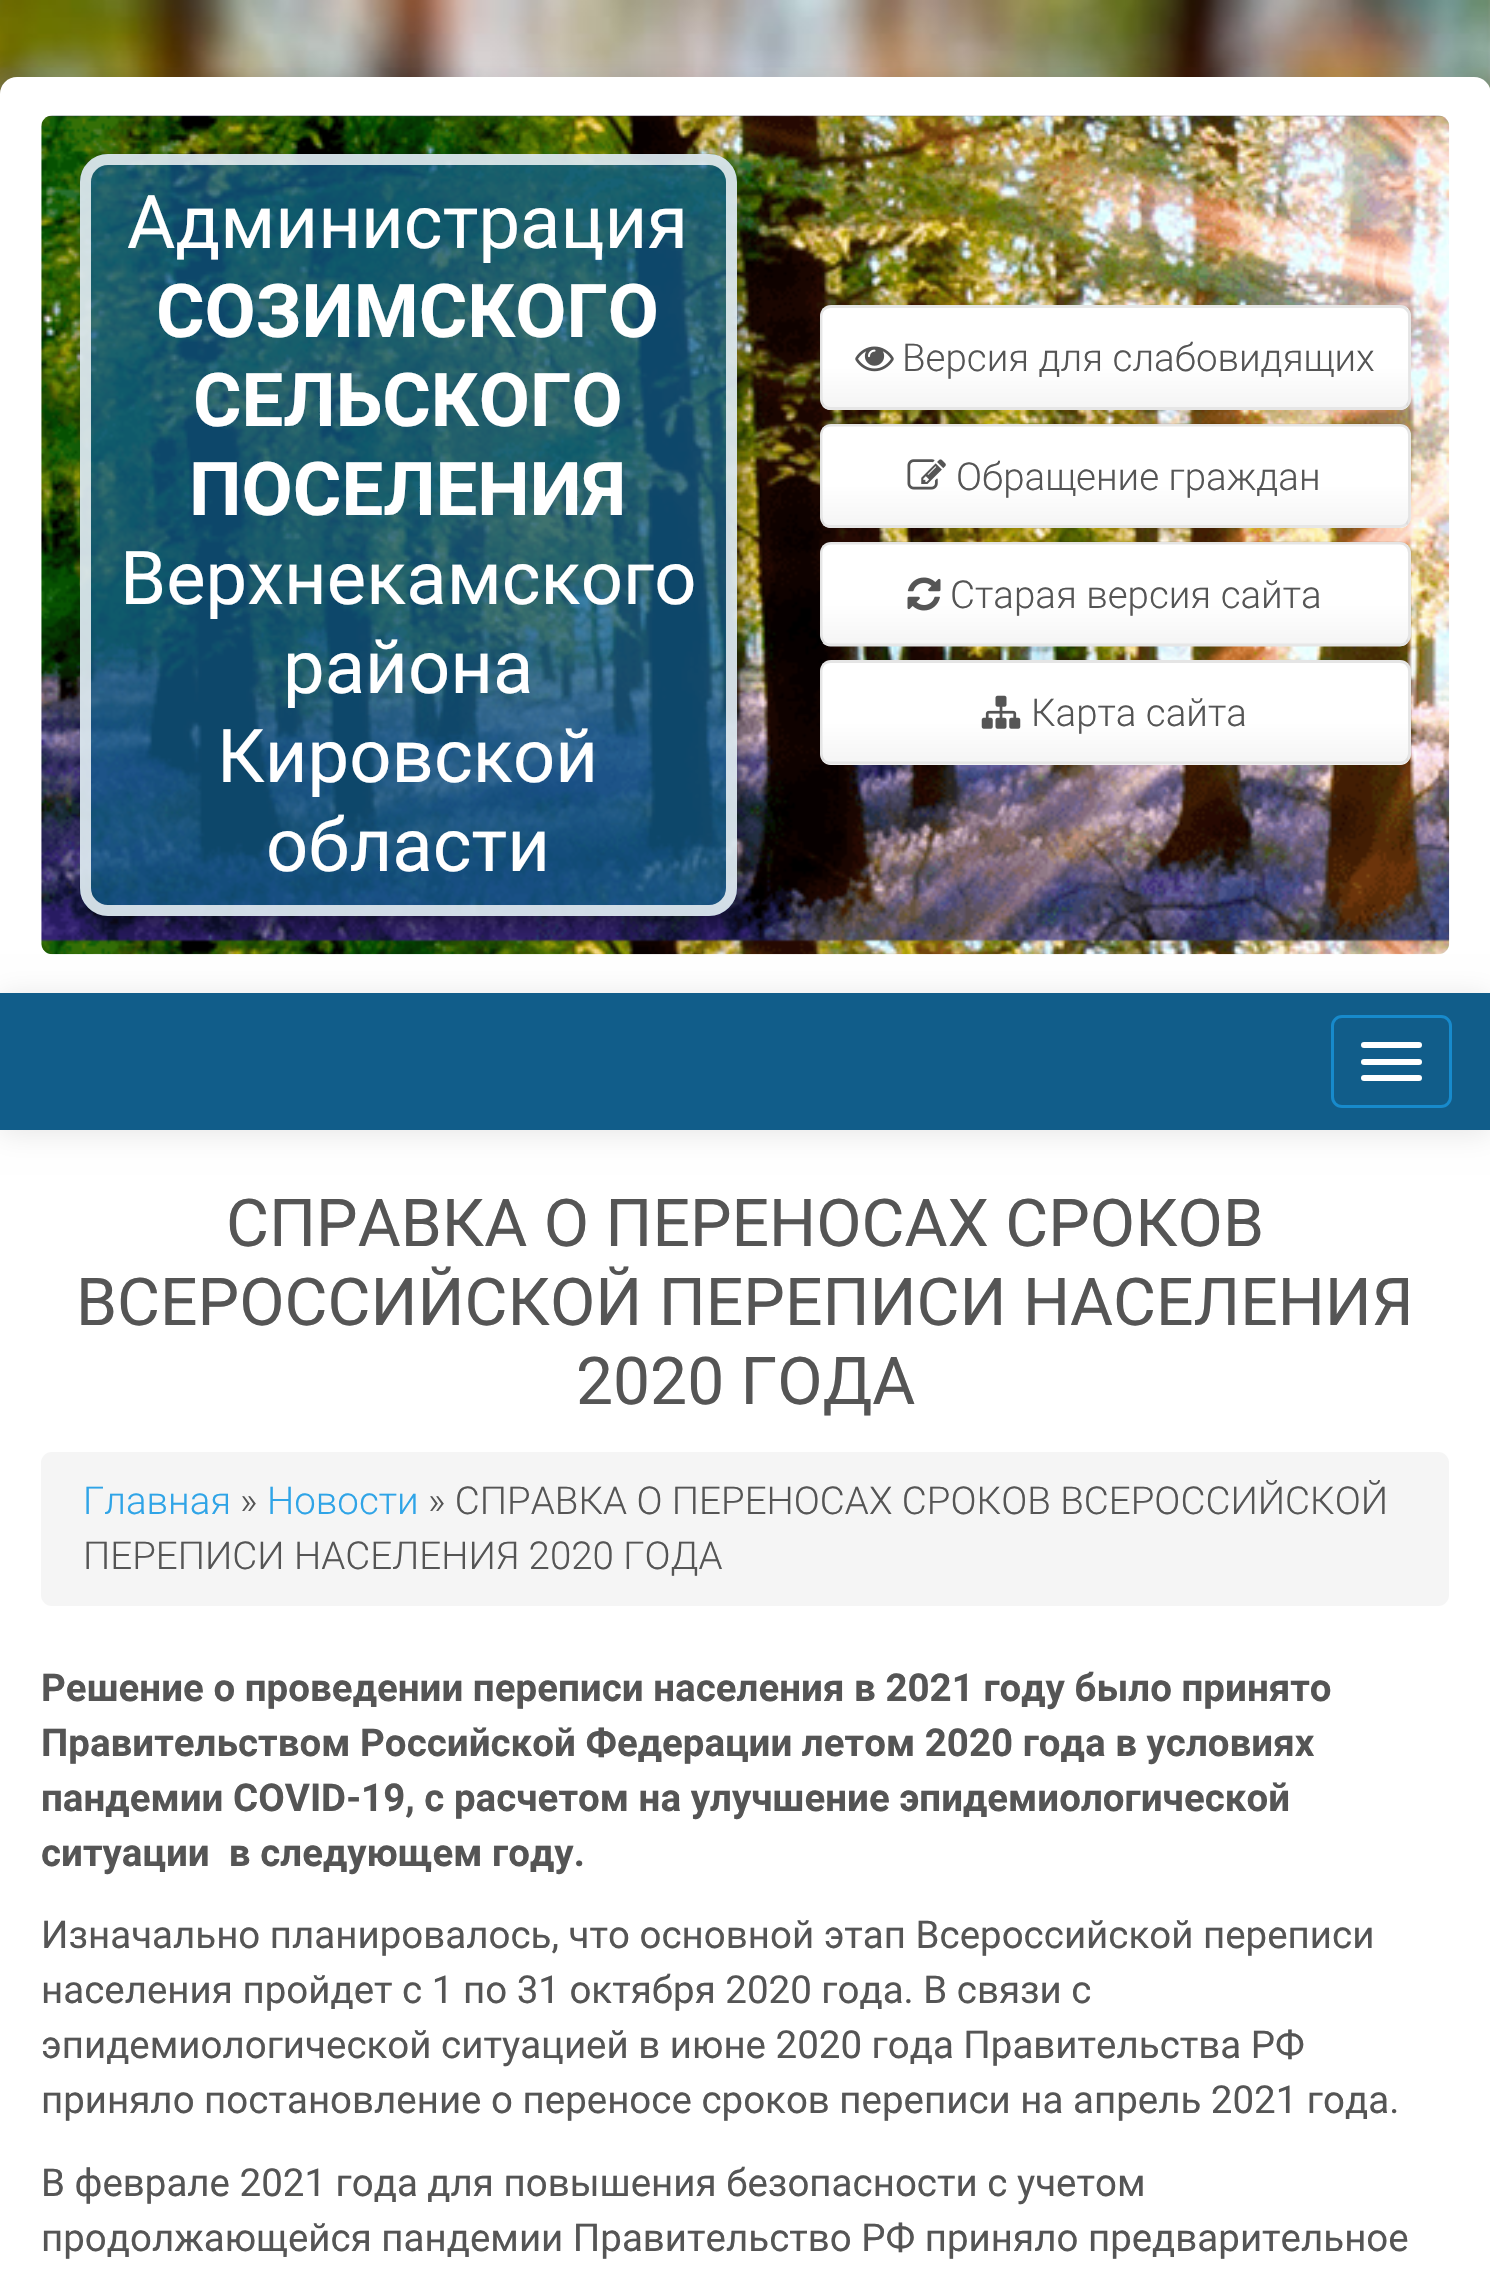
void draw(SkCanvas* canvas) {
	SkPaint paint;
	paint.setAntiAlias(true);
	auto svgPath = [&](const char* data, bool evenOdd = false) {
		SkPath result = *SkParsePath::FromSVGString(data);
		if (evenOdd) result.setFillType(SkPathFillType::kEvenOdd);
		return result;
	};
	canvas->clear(0xffffffff);
	canvas->drawImageRect(SkImages::DeferredFromEncodedData(SkData::MakeFromFileName("img1.png")), SkRect::MakeXYWH(0, 0, 1490, 94), SkSamplingOptions());
	paint.setColor(0x26000000);
	paint.setMaskFilter(SkMaskFilter::MakeBlur(kNormal_SkBlurStyle, 14));
	canvas->drawRoundRect(SkRect::MakeXYWH(0, 83, 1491, 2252), 17, 17, paint);
	paint.setMaskFilter(nullptr);
	paint.setColor(0xffffffff);
	canvas->drawRoundRect(SkRect::MakeXYWH(0, 77, 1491, 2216), 17, 17, paint);
	canvas->drawImageRect(SkImages::DeferredFromEncodedData(SkData::MakeFromFileName("img2.png")), SkRect::MakeXYWH(41, 115, 1409, 840), SkSamplingOptions());
	canvas->save();
	canvas->clipPath(svgPath("M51 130H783V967H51ZM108 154H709C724.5 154 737 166.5 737 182V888C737 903.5 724.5 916 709 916H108C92.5 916 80 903.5 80 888V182C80 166.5 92.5 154 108 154Z", true), true);
	paint.setColor(0x80000000);
	paint.setMaskFilter(SkMaskFilter::MakeBlur(kNormal_SkBlurStyle, 14));
	canvas->drawRoundRect(SkRect::MakeXYWH(94, 173, 646, 751), 22, 22, paint);
	paint.setMaskFilter(nullptr);
	canvas->restore();
	paint.setColor(0xc4115d8a);
	canvas->drawRoundRect(SkRect::MakeXYWH(80, 154, 657, 762), 28, 28, paint);
	paint.setStroke(true);
	paint.setStrokeWidth(11);
	paint.setColor(0xccffffff);
	canvas->drawRoundRect(SkRect::MakeXYWH(85.5, 159.5, 646, 751), 22.5, 22.5, paint);
	SkFont f1(fontMgr->matchFamilyStyle("Roboto", SkFontStyle::Normal()), 74.25);
	f1.setSubpixel(true);
	paint.setStroke(false);
	paint.setColor(0xffffffff);
	canvas->drawString("Администрация", 127, 248, f1, paint);
	SkFont f2(fontMgr->matchFamilyStyle("Roboto", SkFontStyle::Bold()), 74.25);
	f2.setSubpixel(true);
	canvas->drawString("СОЗИМСКОГО", 156, 337, f2, paint);
	canvas->drawString("СЕЛЬСКОГО", 193, 426, f2, paint);
	canvas->drawString("ПОСЕЛЕНИЯ", 189, 515, f2, paint);
	canvas->drawString("Верхнекамского", 120, 604, f1, paint);
	canvas->drawString("района", 283, 693, f1, paint);
	canvas->drawString("Кировской", 217, 782, f1, paint);
	canvas->drawString("области", 266, 871, f1, paint);
	canvas->drawRoundRect(SkRect::MakeXYWH(820, 305, 591, 105), 11, 11, paint);
	canvas->save();
	canvas->clipPath(svgPath("M831 305H1400C1406 305 1411 310 1411 316V399C1411 405 1406 410 1400 410H831C825 410 820 405 820 399V316C820 310 825 305 831 305Z"), true);
	{
		const SkColor colors[] = {0xffffffff, 0xffffffff, 0xfff5f5f5};
		const float stops[] = {0, 0.6, 1};
		const SkPoint ends[] = {{1115, 308}, {1115, 407}};
		paint.setShader(SkGradientShader::MakeLinear(ends, colors, stops, 3, SkTileMode::kClamp));
		paint.setAlpha(255);
	}
	canvas->drawRect(SkRect::MakeXYWH(822, 308, 586, 99), paint);
	canvas->restore();
	paint.setStroke(true);
	paint.setStrokeWidth(2.8);
	paint.setShader(nullptr);
	paint.setColor(0xffe6e6e6);
	canvas->drawPath(svgPath("M1406.5 405.5C1405 407.5 1402.5 408.5 1400 408.5H830.5C828 408.5 825.5 407.5 823.5 405.5"), paint);
	paint.setColor(0x1a000000);
	canvas->drawPath(svgPath("M823.5 405.5C822 404 821 401.5 821 399V316C821 313.5 822 311 823.5 309.5C825.5 307.5 828 306.5 830.5 306.5H1400C1402.5 306.5 1405 307.5 1406.5 309.5C1408.5 311 1409.5 313.5 1409.5 316V399C1409.5 401.5 1408.5 404 1406.5 405.5"), paint);
	canvas->drawImageRect(SkImages::DeferredFromEncodedData(SkData::MakeFromFileName("img3.png")), SkRect::MakeXYWH(855, 346, 39, 26), SkSamplingOptions());
	SkFont f3(fontMgr->matchFamilyStyle("Roboto", SkFontStyle(300, SkFontStyle::kNormal_Width, SkFontStyle::kUpright_Slant)), 38.5);
	f3.setSubpixel(true);
	paint.setStroke(false);
	paint.setColor(0xff555555);
	canvas->drawString("Версия для слабовидящих", 902, 371, f3, paint);
	paint.setColor(0xffffffff);
	canvas->drawRoundRect(SkRect::MakeXYWH(820, 424, 591, 104), 11, 11, paint);
	canvas->save();
	canvas->clipPath(svgPath("M831 424H1400C1406 424 1411 429 1411 435V517C1411 523 1406 528 1400 528H831C825 528 820 523 820 517V435C820 429 825 424 831 424Z"), true);
	{
		const SkColor colors[] = {0xffffffff, 0xffffffff, 0xfff5f5f5};
		const float stops[] = {0, 0.6, 1};
		const SkPoint ends[] = {{1115, 426}, {1115, 525}};
		paint.setShader(SkGradientShader::MakeLinear(ends, colors, stops, 3, SkTileMode::kClamp));
		paint.setAlpha(255);
	}
	canvas->drawRect(SkRect::MakeXYWH(822, 426, 586, 99), paint);
	canvas->restore();
	paint.setStroke(true);
	paint.setShader(nullptr);
	paint.setColor(0xffe6e6e6);
	canvas->drawPath(svgPath("M1406.5 524C1405 525.5 1402.5 526.5 1400 526.5H830.5C828 526.5 825.5 525.5 823.5 524"), paint);
	paint.setColor(0x1a000000);
	canvas->drawPath(svgPath("M823.5 524C822 522 821 519.5 821 517V434.5C821 432 822 429.5 823.5 427.5C825.5 426 828 425 830.5 425H1400C1402.5 425 1405 426 1406.5 427.5C1408.5 429.5 1409.5 432 1409.5 434.5V517C1409.5 519.5 1408.5 522 1406.5 524"), paint);
	canvas->drawImageRect(SkImages::DeferredFromEncodedData(SkData::MakeFromFileName("img4.png")), SkRect::MakeXYWH(907, 459, 39, 31), SkSamplingOptions());
	paint.setStroke(false);
	paint.setColor(0xff555555);
	canvas->drawString("Обращение граждан", 956, 490, f3, paint);
	paint.setColor(0xffffffff);
	canvas->drawRoundRect(SkRect::MakeXYWH(820, 542, 591, 104), 11, 11, paint);
	canvas->save();
	canvas->clipPath(svgPath("M831 542H1400C1406 542 1411 547 1411 553V635C1411 641 1406 646 1400 646H831C825 646 820 641 820 635V553C820 547 825 542 831 542Z"), true);
	{
		const SkColor colors[] = {0xffffffff, 0xffffffff, 0xfff5f5f5};
		const float stops[] = {0, 0.6, 1};
		const SkPoint ends[] = {{1115, 545}, {1115, 644}};
		paint.setShader(SkGradientShader::MakeLinear(ends, colors, stops, 3, SkTileMode::kClamp));
		paint.setAlpha(255);
	}
	canvas->drawRect(SkRect::MakeXYWH(822, 545, 586, 99), paint);
	canvas->restore();
	paint.setStroke(true);
	paint.setShader(nullptr);
	paint.setColor(0xffe6e6e6);
	canvas->drawPath(svgPath("M1406.5 642C1405 644 1402.5 645 1400 645H830.5C828 645 825.5 644 823.5 642"), paint);
	paint.setColor(0x1a000000);
	canvas->drawPath(svgPath("M823.5 642C822 640.5 821 638 821 635V553C821 550 822 547.5 823.5 546C825.5 544 828 543 830.5 543H1400C1402.5 543 1405 544 1406.5 546C1408.5 547.5 1409.5 550 1409.5 553V635C1409.5 638 1408.5 640.5 1406.5 642"), paint);
	canvas->drawImageRect(SkImages::DeferredFromEncodedData(SkData::MakeFromFileName("img5.png")), SkRect::MakeXYWH(907, 577, 34, 34), SkSamplingOptions());
	paint.setStroke(false);
	paint.setColor(0xff555555);
	canvas->drawString("Старая версия сайта", 950, 608, f3, paint);
	paint.setColor(0xffffffff);
	canvas->drawRoundRect(SkRect::MakeXYWH(820, 660, 591, 105), 11, 11, paint);
	canvas->save();
	canvas->clipPath(svgPath("M831 660H1400C1406 660 1411 665 1411 671V754C1411 760 1406 765 1400 765H831C825 765 820 760 820 754V671C820 665 825 660 831 660Z"), true);
	{
		const SkColor colors[] = {0xffffffff, 0xffffffff, 0xfff5f5f5};
		const float stops[] = {0, 0.6, 1};
		const SkPoint ends[] = {{1115, 663}, {1115, 762}};
		paint.setShader(SkGradientShader::MakeLinear(ends, colors, stops, 3, SkTileMode::kClamp));
		paint.setAlpha(255);
	}
	canvas->drawRect(SkRect::MakeXYWH(822, 663, 586, 99), paint);
	canvas->restore();
	paint.setStroke(true);
	paint.setShader(nullptr);
	paint.setColor(0xffe6e6e6);
	canvas->drawPath(svgPath("M1406.5 760.5C1405 762 1402.5 763 1400 763H830.5C828 763 825.5 762 823.5 760.5"), paint);
	paint.setColor(0x1a000000);
	canvas->drawPath(svgPath("M823.5 760.5C822 758.5 821 756 821 753.5V671C821 668.5 822 666 823.5 664C825.5 662.5 828 661.5 830.5 661.5H1400C1402.5 661.5 1405 662.5 1406.5 664C1408.5 666 1409.5 668.5 1409.5 671V753.5C1409.5 756 1408.5 758.5 1406.5 760.5"), paint);
	canvas->drawImageRect(SkImages::DeferredFromEncodedData(SkData::MakeFromFileName("img6.png")), SkRect::MakeXYWH(981, 695, 40, 34), SkSamplingOptions());
	paint.setStroke(false);
	paint.setColor(0xff555555);
	canvas->drawString("Карта сайта", 1031, 726, f3, paint);
	paint.setColor(0x1a000000);
	paint.setMaskFilter(SkMaskFilter::MakeBlur(kNormal_SkBlurStyle, 14));
	canvas->drawRect(SkRect::MakeXYWH(0, 996, 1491, 137), paint);
	paint.setMaskFilter(nullptr);
	paint.setColor(0xff115d8a);
	canvas->drawRect(SkRect::MakeXYWH(0, 993, 1490, 137), paint);
	paint.setStroke(true);
	paint.setStrokeWidth(3);
	paint.setColor(0xff178acc);
	canvas->drawRoundRect(SkRect::MakeXYWH(1332.5, 1016.5, 118, 90), 9.5, 9.5, paint);
	paint.setStroke(false);
	paint.setColor(0xffffffff);
	canvas->drawRoundRect(SkRect::MakeXYWH(1361, 1042, 61, 6), 3, 3, paint);
	canvas->drawRoundRect(SkRect::MakeXYWH(1361, 1059, 61, 6), 3, 3, paint);
	canvas->drawRoundRect(SkRect::MakeXYWH(1361, 1075, 61, 6), 3, 3, paint);
	SkFont f4(fontMgr->matchFamilyStyle("Roboto", SkFontStyle::Normal()), 66);
	f4.setSubpixel(true);
	paint.setColor(0xff555555);
	canvas->drawString("СПРАВКА О ПЕРЕНОСАХ СРОКОВ", 226, 1246, f4, paint);
	canvas->drawString("ВСЕРОССИЙСКОЙ ПЕРЕПИСИ НАСЕЛЕНИЯ", 76, 1325, f4, paint);
	canvas->drawString("2020 ГОДА", 576, 1404, f4, paint);
	paint.setColor(0xfff5f5f5);
	canvas->drawRoundRect(SkRect::MakeXYWH(41, 1452, 1408, 154), 11, 11, paint);
	paint.setColor(0xff2fa4e7);
	canvas->drawString("Главная", 83, 1514, f3, paint);
	paint.setColor(0xff555555);
	canvas->drawString("»", 240, 1514, f3, paint);
	paint.setColor(0xff2fa4e7);
	canvas->drawString("Новости", 267, 1514, f3, paint);
	paint.setColor(0xff555555);
	canvas->drawString("» СПРАВКА О ПЕРЕНОСАХ СРОКОВ ВСЕРОССИЙСКОЙ", 428, 1514, f3, paint);
	canvas->drawString("ПЕРЕПИСИ НАСЕЛЕНИЯ 2020 ГОДА", 83, 1569, f3, paint);
	SkFont f5(fontMgr->matchFamilyStyle("Roboto", SkFontStyle::Bold()), 38.5);
	f5.setSubpixel(true);
	canvas->drawString("Решение о проведении переписи населения в 2021 году было принято", 41, 1701, f5, paint);
	canvas->drawString("Правительством Российской Федерации летом 2020 года в условиях", 41, 1756, f5, paint);
	canvas->drawString("пандемии COVID-19, с расчетом на улучшение эпидемиологической", 41, 1811, f5, paint);
	canvas->drawString("ситуации  в следующем году.", 41, 1866, f5, paint);
	SkFont f6(fontMgr->matchFamilyStyle("Roboto", SkFontStyle::Normal()), 38.5);
	f6.setSubpixel(true);
	canvas->drawString("Изначально планировалось, что основной этап Всероссийской переписи", 41, 1948, f6, paint);
	canvas->drawString("населения пройдет с 1 по 31 октября 2020 года. В связи с", 41, 2003, f6, paint);
	canvas->drawString("эпидемиологической ситуацией в июне 2020 года Правительства РФ", 41, 2058, f6, paint);
	canvas->drawString("приняло постановление о переносе сроков переписи на апрель 2021 года.", 41, 2113, f6, paint);
	canvas->drawString("В феврале 2021 года для повышения безопасности с учетом", 41, 2196, f6, paint);
	canvas->drawString("продолжающейся пандемии Правительство РФ приняло предварительное", 41, 2251, f6, paint);
}
